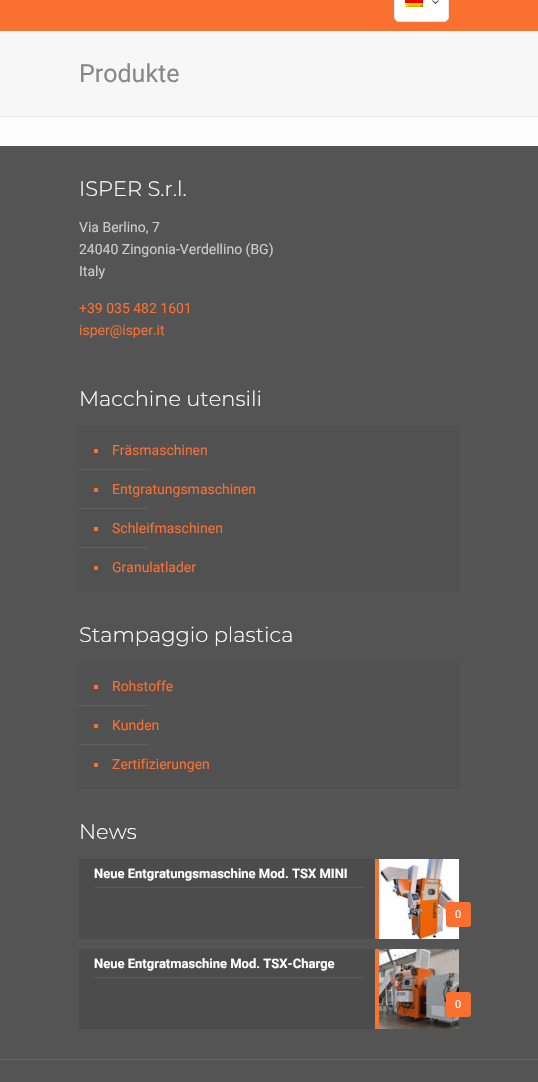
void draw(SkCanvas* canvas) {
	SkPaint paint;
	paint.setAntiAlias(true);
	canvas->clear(0xfffcfcfc);
	paint.setColor(0xfffa7031);
	canvas->drawRect(SkRect::MakeXYWH(0, 0, 538, 31), paint);
	paint.setColor(0xffffffff);
	canvas->drawRoundRect(SkRect::MakeXYWH(394.5, -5.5, 54, 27), 4.5, 4.5, paint);
	paint.setStroke(true);
	paint.setStrokeWidth(1);
	paint.setColor(0xffe8e8e8);
	canvas->drawRoundRect(SkRect::MakeXYWH(394.5, -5.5, 54, 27), 4.5, 4.5, paint);
	canvas->drawImageRect(SkImages::DeferredFromEncodedData(SkData::MakeFromFileName("img1.png")), SkRect::MakeXYWH(405, 0, 18, 7), SkSamplingOptions());
	canvas->drawImageRect(SkImages::DeferredFromEncodedData(SkData::MakeFromFileName("img2.png")), SkRect::MakeXYWH(432, 0, 7, 4), SkSamplingOptions());
	paint.setStroke(false);
	paint.setColor(0xfff7f7f7);
	canvas->drawRect(SkRect::MakeXYWH(0, 31, 538, 85), paint);
	SkFont f1(fontMgr->matchFamilyStyle("Roboto", SkFontStyle::Normal()), 25);
	f1.setSubpixel(true);
	paint.setColor(0xff888888);
	canvas->drawString("Produkte", 79, 82, f1, paint);
	canvas->drawImageRect(SkImages::DeferredFromEncodedData(SkData::MakeFromFileName("img3.png")), SkRect::MakeXYWH(0, 116, 538, 2), SkSamplingOptions());
	paint.setColor(0xff545454);
	canvas->drawRect(SkRect::MakeXYWH(0, 146, 538, 936), paint);
	SkFont f2(fontMgr->matchFamilyStyle("Montserrat", SkFontStyle(300, SkFontStyle::kNormal_Width, SkFontStyle::kUpright_Slant)), 21);
	f2.setSubpixel(true);
	paint.setColor(0xffffffff);
	canvas->drawString("ISPER S.r.l.", 79, 196, f2, paint);
	SkFont f3(fontMgr->matchFamilyStyle("Roboto", SkFontStyle::Normal()), 14);
	f3.setSubpixel(true);
	paint.setColor(0xffcccccc);
	canvas->drawString("Via Berlino, 7", 79, 232, f3, paint);
	canvas->drawString("24040 Zingonia-Verdellino (BG)", 79, 254, f3, paint);
	canvas->drawString("Italy", 79, 276, f3, paint);
	paint.setColor(0xfffa7031);
	canvas->drawString("+39 035 482 1601", 79, 313, f3, paint);
	canvas->drawString("isper@isper.it", 79, 335, f3, paint);
	paint.setColor(0xffffffff);
	canvas->drawString("Macchine utensili", 79, 406, f2, paint);
	paint.setColor(0xff515151);
	canvas->drawRect(SkRect::MakeXYWH(79, 426, 380, 166), paint);
	paint.setColor(0xfffa7031);
	canvas->drawRect(SkRect::MakeXYWH(94, 449, 4, 4), paint);
	canvas->drawString("Fräsmaschinen", 112, 455, f3, paint);
	paint.setColor(0xff5f5f5f);
	canvas->drawRect(SkRect::MakeXYWH(79, 469, 70, 1), paint);
	paint.setColor(0xfffa7031);
	canvas->drawRect(SkRect::MakeXYWH(94, 488, 4, 4), paint);
	canvas->drawString("Entgratungsmaschinen", 112, 494, f3, paint);
	paint.setColor(0xff5f5f5f);
	canvas->drawRect(SkRect::MakeXYWH(79, 508, 70, 1), paint);
	paint.setColor(0xfffa7031);
	canvas->drawRect(SkRect::MakeXYWH(94, 527, 4, 4), paint);
	canvas->drawString("Schleifmaschinen", 112, 533, f3, paint);
	paint.setColor(0xff5f5f5f);
	canvas->drawRect(SkRect::MakeXYWH(79, 547, 70, 1), paint);
	paint.setColor(0xfffa7031);
	canvas->drawRect(SkRect::MakeXYWH(94, 566, 4, 4), paint);
	canvas->drawString("Granulatlader", 112, 572, f3, paint);
	paint.setColor(0xffffffff);
	canvas->drawString("Stampaggio plastica", 79, 642, f2, paint);
	paint.setColor(0xff515151);
	canvas->drawRect(SkRect::MakeXYWH(79, 662, 380, 127), paint);
	paint.setColor(0xfffa7031);
	canvas->drawRect(SkRect::MakeXYWH(94, 685, 4, 4), paint);
	canvas->drawString("Rohstoffe", 112, 691, f3, paint);
	paint.setColor(0xff5f5f5f);
	canvas->drawRect(SkRect::MakeXYWH(79, 705, 70, 1), paint);
	paint.setColor(0xfffa7031);
	canvas->drawRect(SkRect::MakeXYWH(94, 724, 4, 4), paint);
	canvas->drawString("Kunden", 112, 730, f3, paint);
	paint.setColor(0xff5f5f5f);
	canvas->drawRect(SkRect::MakeXYWH(79, 744, 70, 1), paint);
	paint.setColor(0xfffa7031);
	canvas->drawRect(SkRect::MakeXYWH(94, 763, 4, 4), paint);
	canvas->drawString("Zertifizierungen", 112, 769, f3, paint);
	paint.setColor(0xffffffff);
	canvas->drawString("News", 79, 839, f2, paint);
	paint.setColor(0xff4c4c4c);
	canvas->drawRect(SkRect::MakeXYWH(79, 859, 296, 80), paint);
	paint.setColor(0xff5a5a5a);
	canvas->drawRect(SkRect::MakeXYWH(94, 887, 270, 1), paint);
	SkFont f4(fontMgr->matchFamilyStyle("Roboto", SkFontStyle::Bold()), 13);
	f4.setSubpixel(true);
	paint.setColor(0xffffffff);
	canvas->drawString("Neue Entgratungsmaschine Mod. TSX MINI", 94, 878, f4, paint);
	paint.setColor(0xfffa7031);
	canvas->drawRect(SkRect::MakeXYWH(375, 859, 4, 80), paint);
	canvas->drawImageRect(SkImages::DeferredFromEncodedData(SkData::MakeFromFileName("img4.png")), SkRect::MakeXYWH(379, 859, 80, 80), SkSamplingOptions());
	canvas->drawRoundRect(SkRect::MakeXYWH(446, 902, 25, 25), 3, 3, paint);
	SkFont f5(fontMgr->matchFamilyStyle("Roboto", SkFontStyle::Normal()), 11);
	f5.setSubpixel(true);
	paint.setColor(0xffffffff);
	canvas->drawString("0", 455, 918, f5, paint);
	paint.setColor(0xff4c4c4c);
	canvas->drawRect(SkRect::MakeXYWH(79, 949, 296, 80), paint);
	paint.setColor(0xff5a5a5a);
	canvas->drawRect(SkRect::MakeXYWH(94, 977, 270, 1), paint);
	paint.setColor(0xffffffff);
	canvas->drawString("Neue Entgratmaschine Mod. TSX-Charge", 94, 968, f4, paint);
	paint.setColor(0xfffa7031);
	canvas->drawRect(SkRect::MakeXYWH(375, 949, 4, 80), paint);
	canvas->drawImageRect(SkImages::DeferredFromEncodedData(SkData::MakeFromFileName("img5.png")), SkRect::MakeXYWH(379, 949, 80, 80), SkSamplingOptions());
	canvas->drawRoundRect(SkRect::MakeXYWH(446, 992, 25, 25), 3, 3, paint);
	paint.setColor(0xffffffff);
	canvas->drawString("0", 455, 1008, f5, paint);
	paint.setColor(0xff656565);
	canvas->drawRect(SkRect::MakeXYWH(0, 1059, 538, 1), paint);
}
